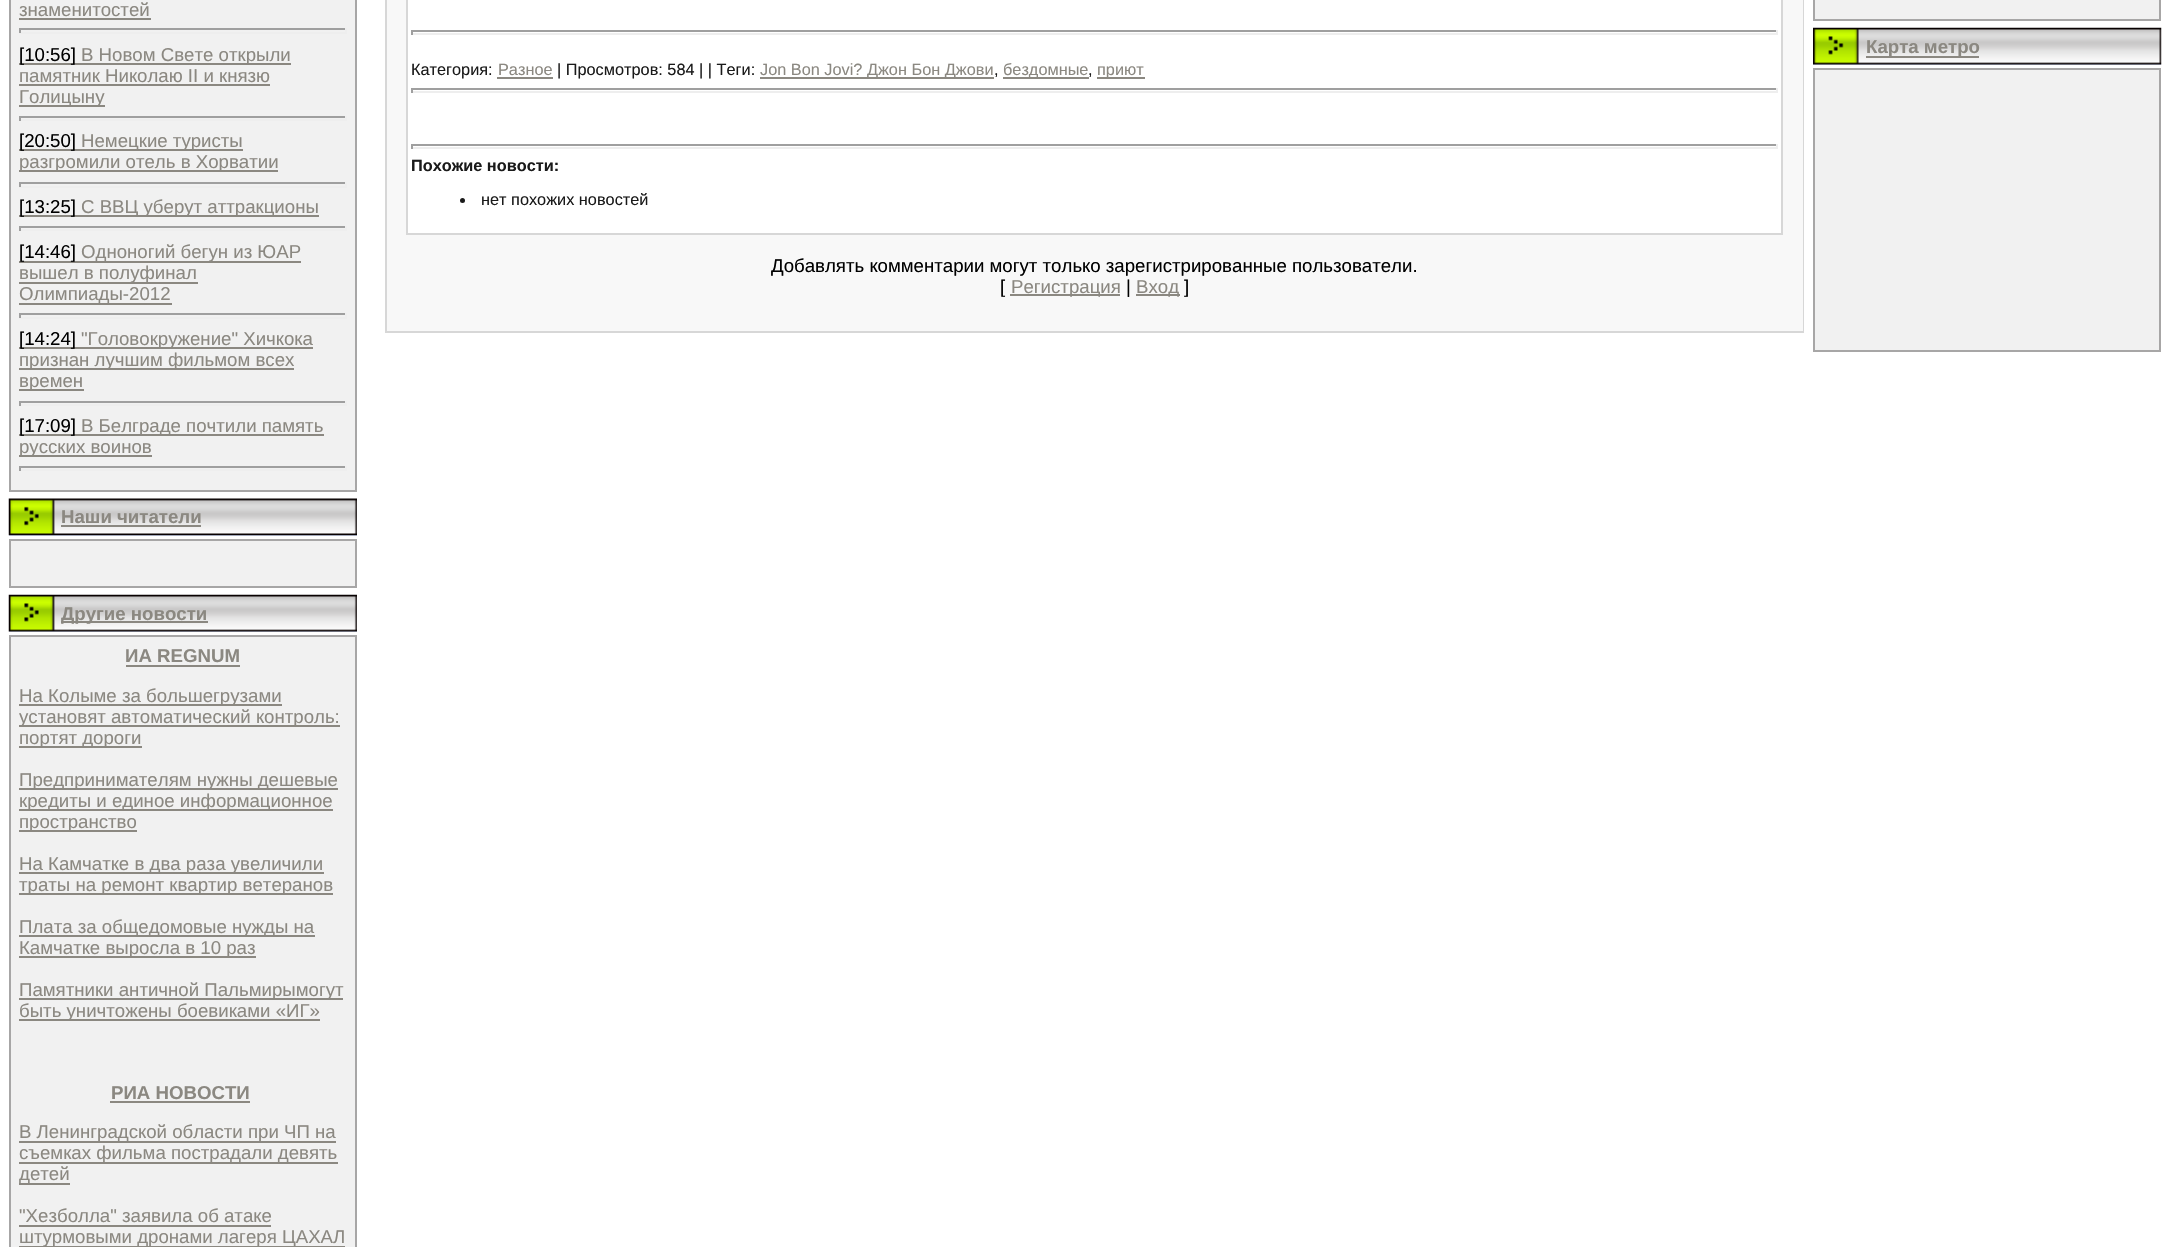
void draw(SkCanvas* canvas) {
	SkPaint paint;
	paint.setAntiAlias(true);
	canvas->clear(0xffffffff);
	paint.setColor(0xfff1f1f1);
	canvas->drawRect(SkRect::MakeXYWH(10, -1, 346, 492), paint);
	paint.setStroke(true);
	paint.setStrokeWidth(2);
	paint.setColor(0xffa7a6a6);
	canvas->drawRect(SkRect::MakeXYWH(10, -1, 346, 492), paint);
	SkFont f1(fontMgr->matchFamilyStyle("Liberation Sans", SkFontStyle::Normal()), 18.65);
	f1.setSubpixel(true);
	paint.setStroke(false);
	paint.setColor(0xff8b8881);
	canvas->drawString("знаменитостей", 19, 16, f1, paint);
	canvas->drawRect(SkRect::MakeXYWH(19, 18, 132, 2), paint);
	paint.setColor(0xff9f9f9f);
	canvas->drawRect(SkRect::MakeXYWH(19, 28, 328, 2), paint);
	paint.setColor(0xffeeeeee);
	canvas->drawRect(SkRect::MakeXYWH(345, 28, 2, 5), paint);
	canvas->drawRect(SkRect::MakeXYWH(19, 32, 328, 2), paint);
	paint.setColor(0xff9f9f9f);
	canvas->drawRect(SkRect::MakeXYWH(19, 28, 2, 5), paint);
	paint.setColor(0xff8b8881);
	canvas->drawRect(SkRect::MakeXYWH(19, 63, 272, 2), paint);
	paint.setColor(0xff000000);
	canvas->drawString("[10:56]", 19, 61, f1, paint);
	paint.setColor(0xff8b8881);
	canvas->drawString("В Новом Свете открыли", 81, 61, f1, paint);
	canvas->drawString("памятник Николаю II и князю", 19, 82, f1, paint);
	canvas->drawRect(SkRect::MakeXYWH(19, 84, 251, 2), paint);
	canvas->drawRect(SkRect::MakeXYWH(19, 105, 86, 2), paint);
	canvas->drawString("Голицыну", 19, 103, f1, paint);
	paint.setColor(0xff9f9f9f);
	canvas->drawRect(SkRect::MakeXYWH(19, 116, 328, 2), paint);
	paint.setColor(0xffeeeeee);
	canvas->drawRect(SkRect::MakeXYWH(345, 116, 2, 5), paint);
	canvas->drawRect(SkRect::MakeXYWH(19, 119, 328, 2), paint);
	paint.setColor(0xff9f9f9f);
	canvas->drawRect(SkRect::MakeXYWH(19, 116, 2, 5), paint);
	paint.setColor(0xff8b8881);
	canvas->drawRect(SkRect::MakeXYWH(19, 149, 224, 2), paint);
	paint.setColor(0xff000000);
	canvas->drawString("[20:50]", 19, 147, f1, paint);
	paint.setColor(0xff8b8881);
	canvas->drawString("Немецкие туристы", 81, 147, f1, paint);
	canvas->drawRect(SkRect::MakeXYWH(19, 170, 259, 2), paint);
	canvas->drawString("разгромили отель в Хорватии", 19, 168, f1, paint);
	paint.setColor(0xff9f9f9f);
	canvas->drawRect(SkRect::MakeXYWH(19, 182, 328, 2), paint);
	paint.setColor(0xffeeeeee);
	canvas->drawRect(SkRect::MakeXYWH(345, 182, 2, 5), paint);
	canvas->drawRect(SkRect::MakeXYWH(19, 186, 328, 2), paint);
	paint.setColor(0xff9f9f9f);
	canvas->drawRect(SkRect::MakeXYWH(19, 182, 2, 5), paint);
	paint.setColor(0xff8b8881);
	canvas->drawRect(SkRect::MakeXYWH(19, 215, 300, 2), paint);
	paint.setColor(0xff000000);
	canvas->drawString("[13:25]", 19, 213, f1, paint);
	paint.setColor(0xff8b8881);
	canvas->drawString("С ВВЦ уберут аттракционы", 81, 213, f1, paint);
	paint.setColor(0xff9f9f9f);
	canvas->drawRect(SkRect::MakeXYWH(19, 226, 328, 2), paint);
	paint.setColor(0xffeeeeee);
	canvas->drawRect(SkRect::MakeXYWH(345, 226, 2, 5), paint);
	canvas->drawRect(SkRect::MakeXYWH(19, 229, 328, 2), paint);
	paint.setColor(0xff9f9f9f);
	canvas->drawRect(SkRect::MakeXYWH(19, 226, 2, 5), paint);
	paint.setColor(0xff8b8881);
	canvas->drawRect(SkRect::MakeXYWH(19, 261, 282, 2), paint);
	paint.setColor(0xff000000);
	canvas->drawString("[14:46]", 19, 258, f1, paint);
	paint.setColor(0xff8b8881);
	canvas->drawString("Одноногий бегун из ЮАР", 81, 258, f1, paint);
	canvas->drawRect(SkRect::MakeXYWH(19, 282, 179, 2), paint);
	canvas->drawString("вышел в полуфинал", 19, 279, f1, paint);
	canvas->drawRect(SkRect::MakeXYWH(19, 303, 153, 2), paint);
	canvas->drawString("Олимпиады-2012", 19, 300, f1, paint);
	paint.setColor(0xff9f9f9f);
	canvas->drawRect(SkRect::MakeXYWH(19, 313, 328, 2), paint);
	paint.setColor(0xffeeeeee);
	canvas->drawRect(SkRect::MakeXYWH(345, 313, 2, 5), paint);
	canvas->drawRect(SkRect::MakeXYWH(19, 317, 328, 2), paint);
	paint.setColor(0xff9f9f9f);
	canvas->drawRect(SkRect::MakeXYWH(19, 313, 2, 5), paint);
	paint.setColor(0xff8b8881);
	canvas->drawRect(SkRect::MakeXYWH(19, 347, 294, 2), paint);
	paint.setColor(0xff000000);
	canvas->drawString("[14:24]", 19, 345, f1, paint);
	paint.setColor(0xff8b8881);
	canvas->drawString("\"Головокружение\" Хичкока", 81, 345, f1, paint);
	canvas->drawRect(SkRect::MakeXYWH(19, 368, 275, 2), paint);
	canvas->drawString("признан лучшим фильмом всех", 19, 366, f1, paint);
	canvas->drawRect(SkRect::MakeXYWH(19, 389, 65, 2), paint);
	canvas->drawString("времен", 19, 387, f1, paint);
	paint.setColor(0xff9f9f9f);
	canvas->drawRect(SkRect::MakeXYWH(19, 401, 328, 2), paint);
	paint.setColor(0xffeeeeee);
	canvas->drawRect(SkRect::MakeXYWH(345, 401, 2, 5), paint);
	canvas->drawRect(SkRect::MakeXYWH(19, 404, 328, 2), paint);
	paint.setColor(0xff9f9f9f);
	canvas->drawRect(SkRect::MakeXYWH(19, 401, 2, 5), paint);
	paint.setColor(0xff8b8881);
	canvas->drawRect(SkRect::MakeXYWH(19, 434, 305, 2), paint);
	paint.setColor(0xff000000);
	canvas->drawString("[17:09]", 19, 432, f1, paint);
	paint.setColor(0xff8b8881);
	canvas->drawString("В Белграде почтили память", 81, 432, f1, paint);
	canvas->drawRect(SkRect::MakeXYWH(19, 455, 133, 2), paint);
	canvas->drawString("русских воинов", 19, 453, f1, paint);
	paint.setColor(0xff9f9f9f);
	canvas->drawRect(SkRect::MakeXYWH(19, 466, 328, 2), paint);
	paint.setColor(0xffeeeeee);
	canvas->drawRect(SkRect::MakeXYWH(345, 466, 2, 5), paint);
	canvas->drawRect(SkRect::MakeXYWH(19, 469, 328, 2), paint);
	paint.setColor(0xff9f9f9f);
	canvas->drawRect(SkRect::MakeXYWH(19, 466, 2, 5), paint);
	paint.setColor(0xffd4dff7);
	canvas->drawRect(SkRect::MakeXYWH(9, 535, 348, 1), paint);
	canvas->drawImageRect(SkImages::DeferredFromEncodedData(SkData::MakeFromFileName("img1.png")), SkRect::MakeXYWH(8, 498, 349, 38), SkSamplingOptions());
	SkFont f2(fontMgr->matchFamilyStyle("Liberation Sans", SkFontStyle::Bold()), 18.65);
	f2.setSubpixel(true);
	paint.setColor(0xff8b8881);
	canvas->drawString("Наши читатели", 61, 523, f2, paint);
	canvas->drawRect(SkRect::MakeXYWH(61, 525, 140, 2), paint);
	paint.setColor(0xfff1f1f1);
	canvas->drawRect(SkRect::MakeXYWH(10, 540, 346, 47), paint);
	paint.setStroke(true);
	paint.setColor(0xffa7a6a6);
	canvas->drawRect(SkRect::MakeXYWH(10, 540, 346, 47), paint);
	paint.setStroke(false);
	paint.setColor(0xffd4dff7);
	canvas->drawRect(SkRect::MakeXYWH(9, 631, 348, 1), paint);
	canvas->drawImageRect(SkImages::DeferredFromEncodedData(SkData::MakeFromFileName("img2.png")), SkRect::MakeXYWH(8, 594, 349, 38), SkSamplingOptions());
	paint.setColor(0xff8b8881);
	canvas->drawRect(SkRect::MakeXYWH(61, 621, 147, 2), paint);
	canvas->drawString("Другие новости", 61, 620, f2, paint);
	paint.setColor(0xfff1f1f1);
	canvas->drawRect(SkRect::MakeXYWH(10, 636, 346, 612), paint);
	paint.setStroke(true);
	paint.setColor(0xffa7a6a6);
	canvas->drawRect(SkRect::MakeXYWH(10, 636, 346, 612), paint);
	paint.setStroke(false);
	paint.setColor(0xff8b8881);
	canvas->drawString("ИА REGNUM", 125, 662, f2, paint);
	canvas->drawRect(SkRect::MakeXYWH(126, 665, 114, 2), paint);
	canvas->drawRect(SkRect::MakeXYWH(19, 704, 263, 2), paint);
	canvas->drawString("На Колыме за большегрузами", 19, 702, f1, paint);
	canvas->drawRect(SkRect::MakeXYWH(19, 725, 321, 2), paint);
	canvas->drawString("установят автоматический контроль:", 19, 723, f1, paint);
	canvas->drawRect(SkRect::MakeXYWH(19, 746, 123, 2), paint);
	canvas->drawString("портят дороги", 19, 744, f1, paint);
	canvas->drawRect(SkRect::MakeXYWH(19, 788, 319, 2), paint);
	canvas->drawString("Предпринимателям нужны дешевые", 19, 786, f1, paint);
	canvas->drawRect(SkRect::MakeXYWH(19, 809, 314, 2), paint);
	canvas->drawString("кредиты и единое информационное", 19, 807, f1, paint);
	canvas->drawRect(SkRect::MakeXYWH(19, 830, 118, 2), paint);
	canvas->drawString("пространство", 19, 828, f1, paint);
	canvas->drawRect(SkRect::MakeXYWH(19, 872, 305, 2), paint);
	canvas->drawString("На Камчатке в два раза увеличили", 19, 870, f1, paint);
	canvas->drawRect(SkRect::MakeXYWH(19, 893, 314, 2), paint);
	canvas->drawString("траты на ремонт квартир ветеранов", 19, 891, f1, paint);
	canvas->drawRect(SkRect::MakeXYWH(19, 935, 296, 2), paint);
	canvas->drawString("Плата за общедомовые нужды на", 19, 933, f1, paint);
	canvas->drawRect(SkRect::MakeXYWH(19, 956, 237, 2), paint);
	canvas->drawString("Камчатке выросла в 10 раз", 19, 954, f1, paint);
	canvas->drawRect(SkRect::MakeXYWH(19, 998, 324, 2), paint);
	canvas->drawString("Памятники античной Пальмирымогут", 19, 996, f1, paint);
	canvas->drawRect(SkRect::MakeXYWH(19, 1019, 301, 2), paint);
	canvas->drawString("быть уничтожены боевиками «ИГ»", 19, 1017, f1, paint);
	canvas->drawString("РИА НОВОСТИ", 111, 1099, f2, paint);
	canvas->drawRect(SkRect::MakeXYWH(110, 1101, 140, 2), paint);
	canvas->drawRect(SkRect::MakeXYWH(19, 1141, 317, 2), paint);
	canvas->drawString("В Ленинградской области при ЧП на", 19, 1138, f1, paint);
	canvas->drawRect(SkRect::MakeXYWH(19, 1162, 319, 2), paint);
	canvas->drawString("съемках фильма пострадали девять", 19, 1159, f1, paint);
	canvas->drawRect(SkRect::MakeXYWH(19, 1183, 51, 2), paint);
	canvas->drawString("детей", 19, 1180, f1, paint);
	canvas->drawString("\"Хезболла\" заявила об атаке", 19, 1222, f1, paint);
	canvas->drawRect(SkRect::MakeXYWH(19, 1225, 252, 2), paint);
	canvas->drawRect(SkRect::MakeXYWH(19, 1246, 326, 1), paint);
	canvas->drawString("штурмовыми дронами лагеря ЦАХАЛ", 19, 1243, f1, paint);
	paint.setColor(0xfff1f1f1);
	canvas->drawRect(SkRect::MakeXYWH(1814, -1, 346, 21), paint);
	paint.setStroke(true);
	paint.setColor(0xffa7a6a6);
	canvas->drawRect(SkRect::MakeXYWH(1814, -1, 346, 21), paint);
	paint.setStroke(false);
	paint.setColor(0xffd4dff7);
	canvas->drawRect(SkRect::MakeXYWH(1813, 64, 348, 1), paint);
	canvas->drawImageRect(SkImages::DeferredFromEncodedData(SkData::MakeFromFileName("img3.png")), SkRect::MakeXYWH(1813, 27, 349, 38), SkSamplingOptions());
	paint.setColor(0xff8b8881);
	canvas->drawRect(SkRect::MakeXYWH(1866, 56, 113, 2), paint);
	canvas->drawString("Карта метро", 1866, 53, f2, paint);
	paint.setColor(0xfff1f1f1);
	canvas->drawRect(SkRect::MakeXYWH(1814, 69, 346, 282), paint);
	paint.setStroke(true);
	paint.setColor(0xffa7a6a6);
	canvas->drawRect(SkRect::MakeXYWH(1814, 69, 346, 282), paint);
	paint.setColor(0xffd7d7d7);
	canvas->drawRect(SkRect::MakeXYWH(386, -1, 1417, 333), paint);
	paint.setStroke(false);
	paint.setColor(0xfff8f8f8);
	canvas->drawRect(SkRect::MakeXYWH(387, 0, 1416, 331), paint);
	paint.setColor(0xffffffff);
	canvas->drawRect(SkRect::MakeXYWH(407, -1, 1375, 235), paint);
	paint.setStroke(true);
	paint.setColor(0xffd7d7d7);
	canvas->drawRect(SkRect::MakeXYWH(407, -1, 1375, 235), paint);
	paint.setStroke(false);
	paint.setColor(0xff9f9f9f);
	canvas->drawRect(SkRect::MakeXYWH(411, 30, 1367, 2), paint);
	paint.setColor(0xffeeeeee);
	canvas->drawRect(SkRect::MakeXYWH(1776, 30, 2, 5), paint);
	canvas->drawRect(SkRect::MakeXYWH(411, 33, 1367, 2), paint);
	paint.setColor(0xff9f9f9f);
	canvas->drawRect(SkRect::MakeXYWH(411, 30, 2, 5), paint);
	SkFont f3(fontMgr->matchFamilyStyle("Liberation Sans", SkFontStyle::Normal()), 16.3);
	f3.setSubpixel(true);
	paint.setColor(0xff1a1a1a);
	canvas->drawString("Категория:", 411, 75, f3, paint);
	paint.setColor(0xff8b8881);
	canvas->drawString("Разное", 498, 75, f3, paint);
	canvas->drawRect(SkRect::MakeXYWH(497, 77, 56, 2), paint);
	paint.setColor(0xff1a1a1a);
	canvas->drawString("| Просмотров: 584 | | Теги:", 557, 75, f3, paint);
	paint.setColor(0xff8b8881);
	canvas->drawRect(SkRect::MakeXYWH(760, 77, 234, 2), paint);
	canvas->drawString("Jon Bon Jovi? Джон Бон Джови", 760, 75, f3, paint);
	paint.setColor(0xff1a1a1a);
	canvas->drawString(",", 994, 75, f3, paint);
	paint.setColor(0xff8b8881);
	canvas->drawRect(SkRect::MakeXYWH(1003, 77, 86, 2), paint);
	canvas->drawString("бездомные", 1003, 75, f3, paint);
	paint.setColor(0xff1a1a1a);
	canvas->drawString(",", 1088, 75, f3, paint);
	paint.setColor(0xff8b8881);
	canvas->drawRect(SkRect::MakeXYWH(1097, 77, 48, 2), paint);
	canvas->drawString("приют", 1097, 75, f3, paint);
	paint.setColor(0xff9f9f9f);
	canvas->drawRect(SkRect::MakeXYWH(411, 88, 1367, 2), paint);
	paint.setColor(0xffeeeeee);
	canvas->drawRect(SkRect::MakeXYWH(1776, 88, 2, 5), paint);
	canvas->drawRect(SkRect::MakeXYWH(411, 91, 1367, 2), paint);
	paint.setColor(0xff9f9f9f);
	canvas->drawRect(SkRect::MakeXYWH(411, 88, 2, 5), paint);
	canvas->drawRect(SkRect::MakeXYWH(411, 144, 1367, 2), paint);
	paint.setColor(0xffeeeeee);
	canvas->drawRect(SkRect::MakeXYWH(1776, 144, 2, 5), paint);
	canvas->drawRect(SkRect::MakeXYWH(411, 147, 1367, 2), paint);
	paint.setColor(0xff9f9f9f);
	canvas->drawRect(SkRect::MakeXYWH(411, 144, 2, 5), paint);
	SkFont f4(fontMgr->matchFamilyStyle("Liberation Sans", SkFontStyle::Bold()), 16.3);
	f4.setSubpixel(true);
	paint.setColor(0xff1a1a1a);
	canvas->drawString("Похожие новости:", 411, 171, f4, paint);
	canvas->drawCircle(462.5, 200.5, 2.5, paint);
	canvas->drawString("нет похожих новостей", 481, 205, f3, paint);
	paint.setColor(0xff000000);
	canvas->drawString("Добавлять комментарии могут только зарегистрированные пользователи.", 771, 272, f1, paint);
	canvas->drawString("[", 1000, 293, f1, paint);
	paint.setColor(0xff8b8881);
	canvas->drawRect(SkRect::MakeXYWH(1010, 294, 110, 2), paint);
	canvas->drawString("Регистрация", 1011, 293, f1, paint);
	paint.setColor(0xff000000);
	canvas->drawString("|", 1126, 293, f1, paint);
	paint.setColor(0xff8b8881);
	canvas->drawRect(SkRect::MakeXYWH(1136, 294, 44, 2), paint);
	canvas->drawString("Вход", 1136, 293, f1, paint);
	paint.setColor(0xff000000);
	canvas->drawString("]", 1184, 293, f1, paint);
}
